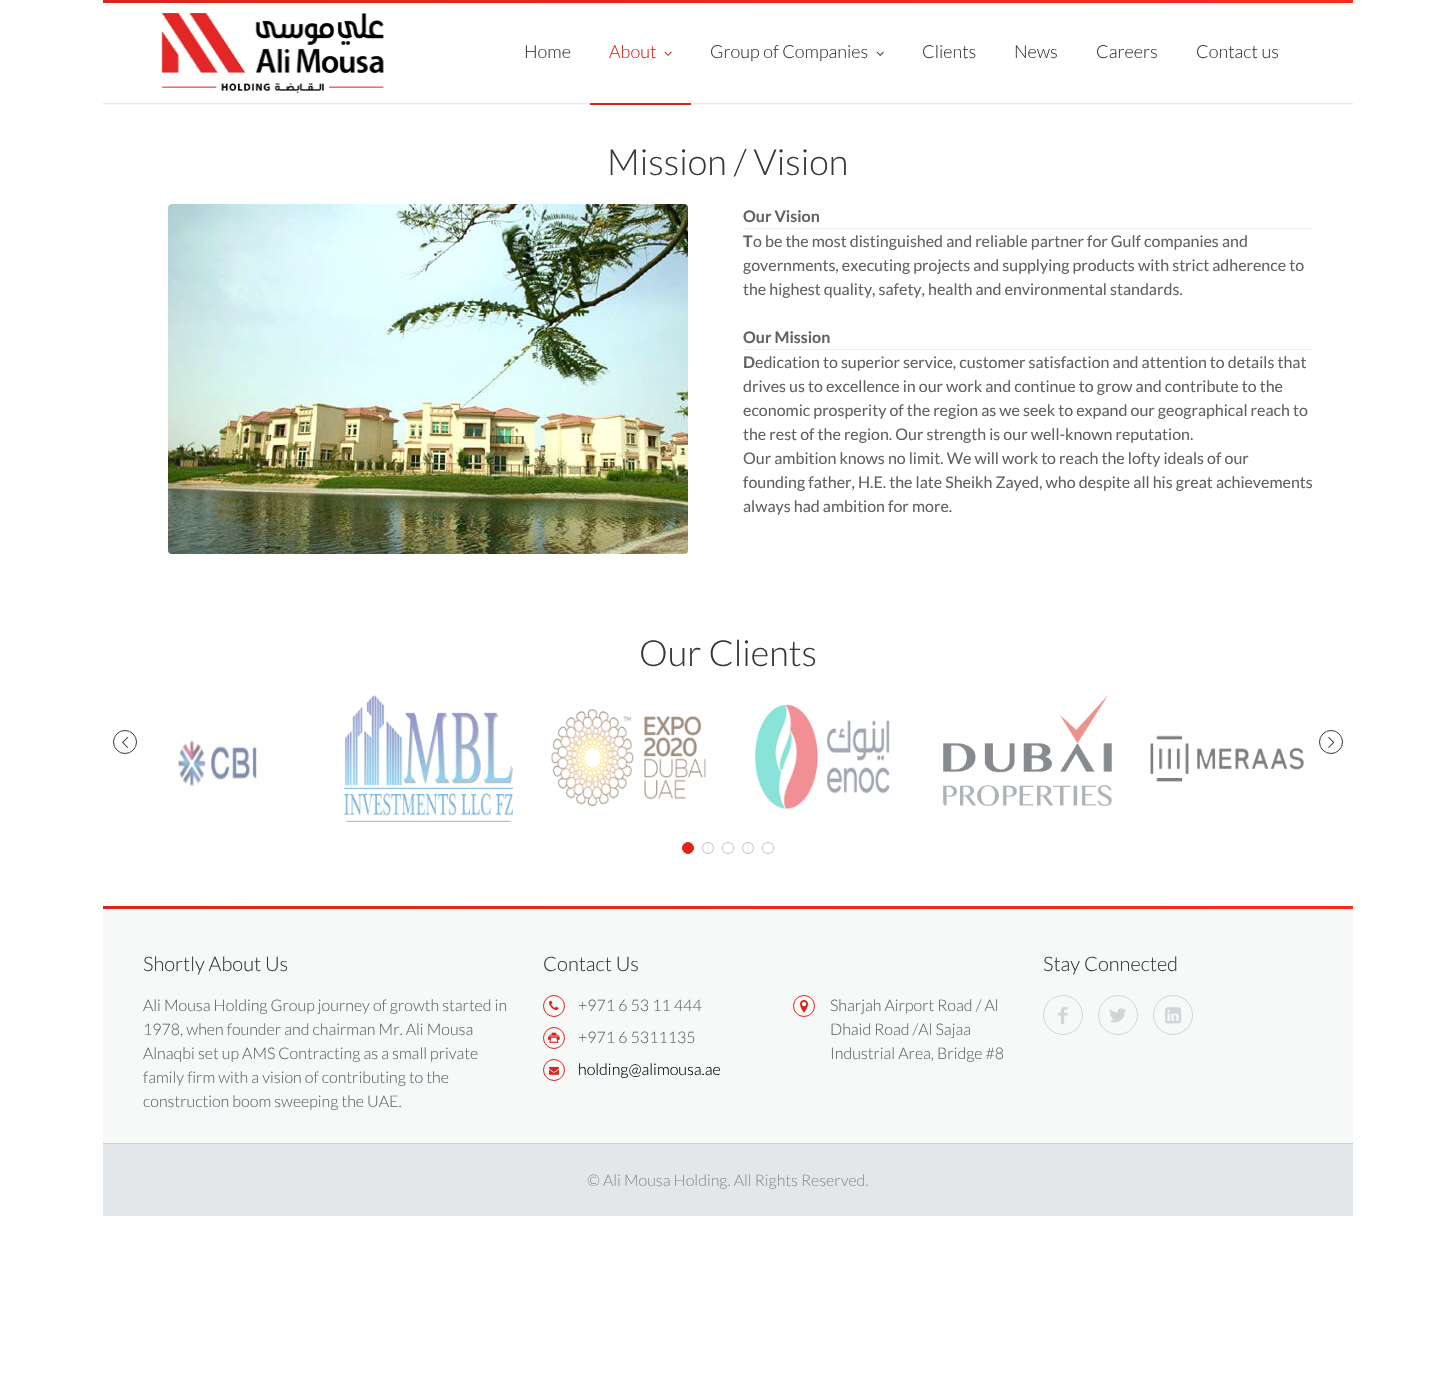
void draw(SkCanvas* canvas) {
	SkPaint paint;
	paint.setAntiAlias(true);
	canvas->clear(0xffffffff);
	{
		const SkColor colors[] = {0xffda251c, 0xfff82b21};
		const float stops[] = {0, 1};
		const SkPoint ends[] = {{103, 1.5}, {1353, 1.5}};
		paint.setShader(SkGradientShader::MakeLinear(ends, colors, stops, 2, SkTileMode::kClamp));
		paint.setAlpha(255);
	}
	canvas->drawRect(SkRect::MakeXYWH(103, 0, 1250, 3), paint);
	canvas->drawImageRect(SkImages::DeferredFromEncodedData(SkData::MakeFromFileName("img1.png")), SkRect::MakeXYWH(161, 13, 223, 80), SkSamplingOptions());
	SkFont f1(fontMgr->matchFamilyStyle("Lato", SkFontStyle(300, SkFontStyle::kNormal_Width, SkFontStyle::kUpright_Slant)), 18);
	f1.setSubpixel(true);
	paint.setShader(nullptr);
	paint.setColor(0xff34383d);
	canvas->drawString("Home", 524, 58, f1, paint);
	paint.setColor(0xffda251c);
	canvas->drawString("About", 609, 58, f1, paint);
	canvas->drawImageRect(SkImages::DeferredFromEncodedData(SkData::MakeFromFileName("img2.png")), SkRect::MakeXYWH(664, 51, 8, 5), SkSamplingOptions());
	canvas->drawImageRect(SkImages::DeferredFromEncodedData(SkData::MakeFromFileName("img4.png")), SkRect::MakeXYWH(103, 103, 1250, 2), SkSamplingOptions());
	canvas->drawRect(SkRect::MakeXYWH(590, 103, 101, 2), paint);
	paint.setColor(0xff34383d);
	canvas->drawString("Group of Companies", 710, 58, f1, paint);
	canvas->drawImageRect(SkImages::DeferredFromEncodedData(SkData::MakeFromFileName("img3.png")), SkRect::MakeXYWH(876, 51, 8, 5), SkSamplingOptions());
	canvas->drawString("Clients", 922, 58, f1, paint);
	canvas->drawString("News", 1014, 58, f1, paint);
	canvas->drawString("Careers", 1096, 58, f1, paint);
	canvas->drawString("Contact us", 1196, 58, f1, paint);
	SkFont f2(fontMgr->matchFamilyStyle("Lato", SkFontStyle(300, SkFontStyle::kNormal_Width, SkFontStyle::kUpright_Slant)), 36);
	f2.setSubpixel(true);
	canvas->drawString("Mission / Vision", 607, 175, f2, paint);
	canvas->drawImageRect(SkImages::DeferredFromEncodedData(SkData::MakeFromFileName("img5.png")), SkRect::MakeXYWH(168, 204, 520, 350), SkSamplingOptions());
	SkFont f3(fontMgr->matchFamilyStyle("Lato", SkFontStyle::Bold()), 16);
	f3.setSubpixel(true);
	paint.setColor(0xff606366);
	canvas->drawString("Our Vision", 743, 222, f3, paint);
	paint.setColor(0xffecf0f1);
	canvas->drawRect(SkRect::MakeXYWH(743, 228, 570, 1), paint);
	paint.setColor(0xff606366);
	canvas->drawString("T", 743, 247, f3, paint);
	SkFont f4(fontMgr->matchFamilyStyle("Lato", SkFontStyle::Normal()), 16);
	f4.setSubpixel(true);
	canvas->drawString("o be the most distinguished and reliable partner for Gulf companies and", 753, 247, f4, paint);
	canvas->drawString("governments, executing projects and supplying products with strict adherence to", 743, 271, f4, paint);
	canvas->drawString("the highest quality, safety, health and environmental standards.", 743, 295, f4, paint);
	canvas->drawString("Our Mission", 743, 343, f3, paint);
	paint.setColor(0xffecf0f1);
	canvas->drawRect(SkRect::MakeXYWH(743, 349, 570, 1), paint);
	paint.setColor(0xff606366);
	canvas->drawString("D", 743, 368, f3, paint);
	canvas->drawString("edication to superior service, customer satisfaction and attention to details that", 755, 368, f4, paint);
	canvas->drawString("drives us to excellence in our work and continue to grow and contribute to the", 743, 392, f4, paint);
	canvas->drawString("economic prosperity of the region as we seek to expand our geographical reach to", 743, 416, f4, paint);
	canvas->drawString("the rest of the region. Our strength is our well-known reputation.", 743, 440, f4, paint);
	canvas->drawString("Our ambition knows no limit. We will work to reach the lofty ideals of our", 743, 464, f4, paint);
	canvas->drawString("founding father, H.E. the late Sheikh Zayed, who despite all his great achievements", 743, 488, f4, paint);
	canvas->drawString("always had ambition for more.", 743, 512, f4, paint);
	paint.setColor(0xff34383d);
	canvas->drawString("Our Clients", 639, 666, f2, paint);
	paint.setStroke(true);
	paint.setStrokeWidth(1);
	canvas->drawCircle(125, 742, 11.5, paint);
	canvas->drawImageRect(SkImages::DeferredFromEncodedData(SkData::MakeFromFileName("img6.png")), SkRect::MakeXYWH(122, 736, 7, 12), SkSamplingOptions());
	canvas->drawImageRect(SkImages::DeferredFromEncodedData(SkData::MakeFromFileName("img7.png")), SkRect::MakeXYWH(178, 740, 81, 50), SkSamplingOptions());
	canvas->drawImageRect(SkImages::DeferredFromEncodedData(SkData::MakeFromFileName("img8.png")), SkRect::MakeXYWH(344, 695, 169, 127), SkSamplingOptions());
	canvas->drawImageRect(SkImages::DeferredFromEncodedData(SkData::MakeFromFileName("img9.png")), SkRect::MakeXYWH(551, 709, 155, 97), SkSamplingOptions());
	canvas->drawImageRect(SkImages::DeferredFromEncodedData(SkData::MakeFromFileName("img10.png")), SkRect::MakeXYWH(755, 704, 135, 106), SkSamplingOptions());
	canvas->drawImageRect(SkImages::DeferredFromEncodedData(SkData::MakeFromFileName("img11.png")), SkRect::MakeXYWH(943, 695, 169, 111), SkSamplingOptions());
	canvas->drawImageRect(SkImages::DeferredFromEncodedData(SkData::MakeFromFileName("img12.png")), SkRect::MakeXYWH(1150, 735, 154, 47), SkSamplingOptions());
	paint.setStroke(false);
	paint.setColor(0xffda251c);
	canvas->drawCircle(688, 848, 5.5, paint);
	paint.setStroke(true);
	canvas->drawCircle(688, 848, 5.5, paint);
	paint.setColor(0xffbfc4c8);
	canvas->drawCircle(708, 848, 5.5, paint);
	canvas->drawCircle(728, 848, 5.5, paint);
	canvas->drawCircle(748, 848, 5.5, paint);
	canvas->drawCircle(768, 848, 5.5, paint);
	paint.setColor(0xff34383d);
	canvas->drawCircle(1331, 742, 11.5, paint);
	canvas->drawImageRect(SkImages::DeferredFromEncodedData(SkData::MakeFromFileName("img13.png")), SkRect::MakeXYWH(1328, 736, 7, 12), SkSamplingOptions());
	paint.setStroke(false);
	{
		const SkColor colors[] = {0xffda251c, 0xfff82b21};
		const float stops[] = {0, 1};
		const SkPoint ends[] = {{103, 908}, {1353, 908}};
		paint.setShader(SkGradientShader::MakeLinear(ends, colors, stops, 2, SkTileMode::kClamp));
		paint.setAlpha(255);
	}
	canvas->drawRect(SkRect::MakeXYWH(103, 906, 1250, 3), paint);
	paint.setShader(nullptr);
	paint.setColor(0xfff7f9f9);
	canvas->drawRect(SkRect::MakeXYWH(103, 909, 1250, 234), paint);
	SkFont f5(fontMgr->matchFamilyStyle("Lato", SkFontStyle(300, SkFontStyle::kNormal_Width, SkFontStyle::kUpright_Slant)), 20);
	f5.setSubpixel(true);
	paint.setColor(0xff34383d);
	canvas->drawString("Shortly About Us", 143, 971, f5, paint);
	SkFont f6(fontMgr->matchFamilyStyle("Lato", SkFontStyle(300, SkFontStyle::kNormal_Width, SkFontStyle::kUpright_Slant)), 16);
	f6.setSubpixel(true);
	paint.setColor(0xff606366);
	canvas->drawString("Ali Mousa Holding Group journey of growth started in", 143, 1011, f6, paint);
	canvas->drawString("1978, when founder and chairman Mr. Ali Mousa", 143, 1035, f6, paint);
	canvas->drawString("Alnaqbi set up AMS Contracting as a small private", 143, 1059, f6, paint);
	canvas->drawString("family firm with a vision of contributing to the", 143, 1083, f6, paint);
	canvas->drawString("construction boom sweeping the UAE.", 143, 1107, f6, paint);
	paint.setColor(0xff34383d);
	canvas->drawString("Contact Us", 543, 971, f5, paint);
	paint.setStroke(true);
	paint.setColor(0xffda251c);
	canvas->drawCircle(554, 1006, 10.5, paint);
	canvas->drawImageRect(SkImages::DeferredFromEncodedData(SkData::MakeFromFileName("img14.png")), SkRect::MakeXYWH(549, 1000, 10, 11), SkSamplingOptions());
	paint.setStroke(false);
	paint.setColor(0xff606366);
	canvas->drawString("+971 6 53 11 444", 578, 1011, f6, paint);
	paint.setStroke(true);
	paint.setColor(0xffda251c);
	canvas->drawCircle(554, 1038, 10.5, paint);
	canvas->drawImageRect(SkImages::DeferredFromEncodedData(SkData::MakeFromFileName("img15.png")), SkRect::MakeXYWH(548, 1032, 12, 11), SkSamplingOptions());
	paint.setStroke(false);
	paint.setColor(0xff606366);
	canvas->drawString("+971 6 5311135", 578, 1043, f6, paint);
	paint.setStroke(true);
	paint.setColor(0xffda251c);
	canvas->drawCircle(554, 1070, 10.5, paint);
	canvas->drawImageRect(SkImages::DeferredFromEncodedData(SkData::MakeFromFileName("img16.png")), SkRect::MakeXYWH(549, 1066, 10, 9), SkSamplingOptions());
	paint.setStroke(false);
	paint.setColor(0xff000000);
	canvas->drawString("holding@alimousa.ae", 578, 1075, f6, paint);
	paint.setStroke(true);
	paint.setColor(0xffda251c);
	canvas->drawCircle(804, 1006, 10.5, paint);
	canvas->drawImageRect(SkImages::DeferredFromEncodedData(SkData::MakeFromFileName("img17.png")), SkRect::MakeXYWH(800, 1000, 8, 13), SkSamplingOptions());
	paint.setStroke(false);
	paint.setColor(0xff606366);
	canvas->drawString("Sharjah Airport Road / Al", 830, 1011, f6, paint);
	canvas->drawString("Dhaid Road /Al Sajaa", 830, 1035, f6, paint);
	canvas->drawString("Industrial Area, Bridge #8", 830, 1059, f6, paint);
	paint.setColor(0xff34383d);
	canvas->drawString("Stay Connected", 1043, 971, f5, paint);
	paint.setStroke(true);
	paint.setColor(0xffd1d5d8);
	canvas->drawCircle(1063, 1015, 19.5, paint);
	canvas->drawImageRect(SkImages::DeferredFromEncodedData(SkData::MakeFromFileName("img18.png")), SkRect::MakeXYWH(1058, 1006, 10, 18), SkSamplingOptions());
	canvas->drawCircle(1118, 1015, 19.5, paint);
	canvas->drawImageRect(SkImages::DeferredFromEncodedData(SkData::MakeFromFileName("img19.png")), SkRect::MakeXYWH(1109, 1008, 17, 15), SkSamplingOptions());
	canvas->drawCircle(1173, 1015, 19.5, paint);
	canvas->drawImageRect(SkImages::DeferredFromEncodedData(SkData::MakeFromFileName("img20.png")), SkRect::MakeXYWH(1165, 1007, 17, 17), SkSamplingOptions());
	paint.setStroke(false);
	paint.setColor(0xffe3e7e9);
	canvas->drawRect(SkRect::MakeXYWH(103, 1144, 1250, 72), paint);
	paint.setColor(0xffcbd0d4);
	canvas->drawRect(SkRect::MakeXYWH(103, 1143, 1250, 1), paint);
	paint.setColor(0xff899096);
	canvas->drawString("© Ali Mousa Holding. All Rights Reserved.", 587, 1186, f6, paint);
}
